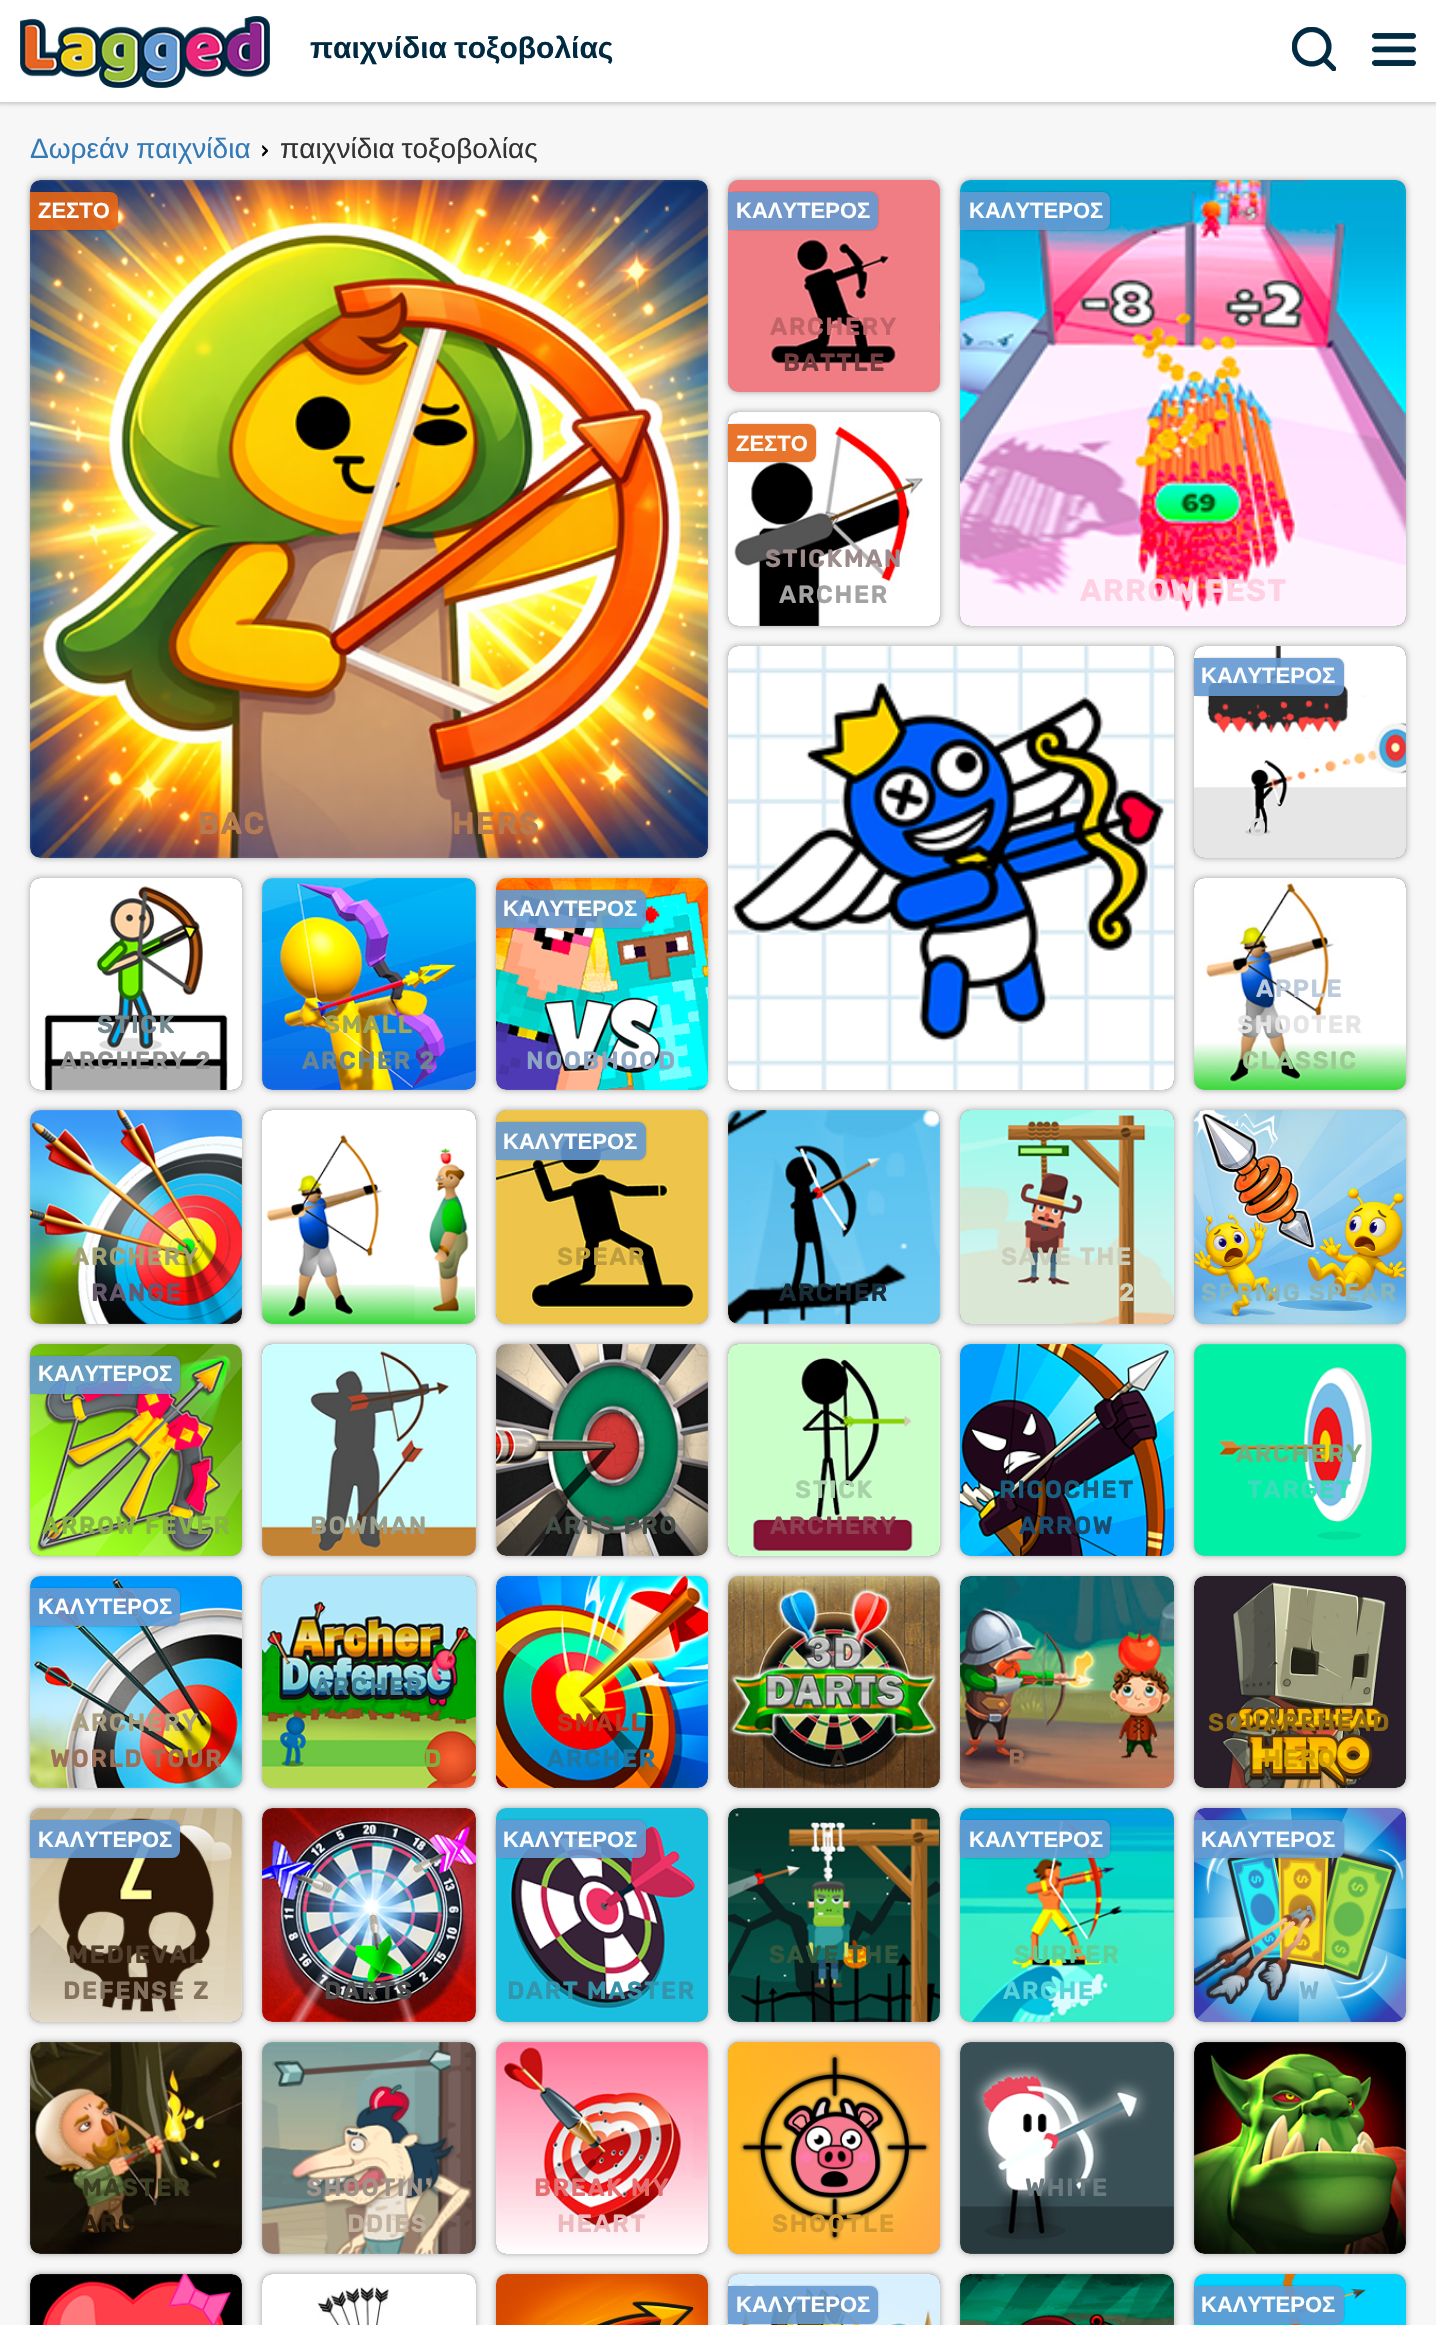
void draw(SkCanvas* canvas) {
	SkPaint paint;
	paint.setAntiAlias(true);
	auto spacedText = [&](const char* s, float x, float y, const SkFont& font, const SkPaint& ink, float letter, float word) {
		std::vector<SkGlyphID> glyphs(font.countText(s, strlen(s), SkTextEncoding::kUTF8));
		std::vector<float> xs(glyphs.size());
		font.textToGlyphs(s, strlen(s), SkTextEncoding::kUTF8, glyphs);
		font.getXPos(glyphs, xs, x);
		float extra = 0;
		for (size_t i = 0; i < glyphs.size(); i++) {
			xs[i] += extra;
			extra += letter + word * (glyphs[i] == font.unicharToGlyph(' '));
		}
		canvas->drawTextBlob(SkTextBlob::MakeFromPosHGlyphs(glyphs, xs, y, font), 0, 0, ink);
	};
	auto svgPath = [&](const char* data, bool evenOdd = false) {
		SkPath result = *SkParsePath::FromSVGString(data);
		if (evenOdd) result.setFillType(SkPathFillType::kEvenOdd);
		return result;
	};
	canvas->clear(0xfff7f7f7);
	paint.setColor(0x33000000);
	paint.setMaskFilter(SkMaskFilter::MakeBlur(kNormal_SkBlurStyle, 2));
	canvas->drawRect(SkRect::MakeXYWH(-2, -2, 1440, 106), paint);
	paint.setMaskFilter(nullptr);
	paint.setColor(0xffffffff);
	canvas->drawRect(SkRect::MakeXYWH(0, 0, 1436, 102), paint);
	canvas->drawImageRect(SkImages::DeferredFromEncodedData(SkData::MakeFromFileName("img1.png")), SkRect::MakeXYWH(20, 16, 250, 72), SkSamplingOptions());
	SkFont f1(fontMgr->matchFamilyStyle("Liberation Sans", SkFontStyle::Bold()), 30);
	f1.setSubpixel(true);
	paint.setColor(0xff002a41);
	spacedText("παιχνίδια τοξοβολίας", 310, 58, f1, paint, 0, -1);
	canvas->drawImageRect(SkImages::DeferredFromEncodedData(SkData::MakeFromFileName("img2.png")), SkRect::MakeXYWH(1292, 27, 44, 44), SkSamplingOptions());
	canvas->drawImageRect(SkImages::DeferredFromEncodedData(SkData::MakeFromFileName("img3.png")), SkRect::MakeXYWH(1372, 33, 44, 33), SkSamplingOptions());
	SkFont f2(fontMgr->matchFamilyStyle("Liberation Sans", SkFontStyle::Normal()), 28);
	f2.setSubpixel(true);
	paint.setColor(0xff337ab7);
	spacedText("Δωρεάν παιχνίδια", 30, 158, f2, paint, 0, -1);
	SkFont f3(fontMgr->matchFamilyStyle("Rubik", SkFontStyle(500, SkFontStyle::kNormal_Width, SkFontStyle::kUpright_Slant)), 22);
	f3.setSubpixel(true);
	paint.setColor(0xff000000);
	canvas->drawString("›", 261, 158, f3, paint);
	paint.setColor(0xff333333);
	spacedText("παιχνίδια τοξοβολίας", 280, 158, f2, paint, 0, -1);
	paint.setColor(0x59000000);
	paint.setMaskFilter(SkMaskFilter::MakeBlur(kNormal_SkBlurStyle, 3));
	canvas->drawRoundRect(SkRect::MakeXYWH(30, 180, 678, 678), 10, 10, paint);
	paint.setMaskFilter(nullptr);
	paint.setColor(0x2e000000);
	canvas->drawRoundRect(SkRect::MakeXYWH(30, 180, 678, 678), 10, 10, paint);
	canvas->drawImageRect(SkImages::DeferredFromEncodedData(SkData::MakeFromFileName("img4.png")), SkRect::MakeXYWH(30, 180, 678, 678), SkSamplingOptions());
	canvas->save();
	canvas->clipPath(svgPath("M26 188H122V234H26ZM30 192H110C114.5 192 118 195.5 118 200V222C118 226.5 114.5 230 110 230H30Z", true), true);
	paint.setColor(0x4d000000);
	paint.setMaskFilter(SkMaskFilter::MakeBlur(kNormal_SkBlurStyle, 1));
	canvas->drawRoundRect(SkRect::MakeXYWH(30, 192, 88, 38), 8, 8, paint);
	paint.setMaskFilter(nullptr);
	canvas->restore();
	paint.setColor(0xe6e76514);
	canvas->drawPath(svgPath("M30 192H110C114.5 192 118 195.5 118 200V222C118 226.5 114.5 230 110 230H30Z"), paint);
	SkFont f4(fontMgr->matchFamilyStyle("Liberation Sans", SkFontStyle::Bold()), 22);
	f4.setSubpixel(true);
	paint.setColor(0xfffefefe);
	canvas->drawString("ΖΕΣΤΟ", 38, 218, f4, paint);
	SkFont f5(fontMgr->matchFamilyStyle("Rubik", SkFontStyle::Bold()), 30);
	f5.setSubpixel(true);
	paint.setColor(0xffb57c53);
	spacedText("BAC", 198, 834, f5, paint, 2, 0);
	spacedText("HERS", 452, 834, f5, paint, 2, 0);
	paint.setColor(0x59000000);
	paint.setMaskFilter(SkMaskFilter::MakeBlur(kNormal_SkBlurStyle, 3));
	canvas->drawRoundRect(SkRect::MakeXYWH(728, 180, 212, 212), 10, 10, paint);
	paint.setMaskFilter(nullptr);
	paint.setColor(0x2e000000);
	canvas->drawRoundRect(SkRect::MakeXYWH(728, 180, 212, 212), 10, 10, paint);
	canvas->drawImageRect(SkImages::DeferredFromEncodedData(SkData::MakeFromFileName("img5.png")), SkRect::MakeXYWH(728, 180, 212, 212), SkSamplingOptions());
	canvas->save();
	canvas->clipPath(svgPath("M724 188H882V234H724ZM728 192H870C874.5 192 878 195.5 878 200V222C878 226.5 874.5 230 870 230H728Z", true), true);
	paint.setColor(0x4d000000);
	paint.setMaskFilter(SkMaskFilter::MakeBlur(kNormal_SkBlurStyle, 1));
	canvas->drawRoundRect(SkRect::MakeXYWH(728, 192, 150, 38), 8, 8, paint);
	paint.setMaskFilter(nullptr);
	canvas->restore();
	paint.setColor(0xe66499d2);
	canvas->drawPath(svgPath("M728 192H870C874.5 192 878 195.5 878 200V222C878 226.5 874.5 230 870 230H728Z"), paint);
	paint.setColor(0xfffefefe);
	canvas->drawString("ΚΑΛΥΤΕΡΟΣ", 736, 218, f4, paint);
	SkFont f6(fontMgr->matchFamilyStyle("Rubik", SkFontStyle::Bold()), 24);
	f6.setSubpixel(true);
	paint.setColor(0xffc0646a);
	spacedText("ARCHERY", 770, 335, f6, paint, 2, 0);
	paint.setColor(0xff753d40);
	spacedText("BATTLE", 783, 371, f6, paint, 2, 0);
	paint.setColor(0x59000000);
	paint.setMaskFilter(SkMaskFilter::MakeBlur(kNormal_SkBlurStyle, 3));
	canvas->drawRoundRect(SkRect::MakeXYWH(960, 180, 446, 446), 10, 10, paint);
	paint.setMaskFilter(nullptr);
	paint.setColor(0x2e000000);
	canvas->drawRoundRect(SkRect::MakeXYWH(960, 180, 446, 446), 10, 10, paint);
	canvas->drawImageRect(SkImages::DeferredFromEncodedData(SkData::MakeFromFileName("img6.png")), SkRect::MakeXYWH(960, 180, 446, 446), SkSamplingOptions());
	canvas->save();
	canvas->clipPath(svgPath("M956 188H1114V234H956ZM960 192H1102C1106.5 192 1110 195.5 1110 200V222C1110 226.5 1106.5 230 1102 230H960Z", true), true);
	paint.setColor(0x4d000000);
	paint.setMaskFilter(SkMaskFilter::MakeBlur(kNormal_SkBlurStyle, 1));
	canvas->drawRoundRect(SkRect::MakeXYWH(960, 192, 150, 38), 8, 8, paint);
	paint.setMaskFilter(nullptr);
	canvas->restore();
	paint.setColor(0xe66499d2);
	canvas->drawPath(svgPath("M960 192H1102C1106.5 192 1110 195.5 1110 200V222C1110 226.5 1106.5 230 1102 230H960Z"), paint);
	paint.setColor(0xfffefefe);
	canvas->drawString("ΚΑΛΥΤΕΡΟΣ", 969, 218, f4, paint);
	paint.setColor(0xffffcfe2);
	spacedText("ARROW FEST", 1080, 601, f5, paint, 2, 0);
	paint.setColor(0x59000000);
	paint.setMaskFilter(SkMaskFilter::MakeBlur(kNormal_SkBlurStyle, 3));
	canvas->drawRoundRect(SkRect::MakeXYWH(728, 412, 212, 214), 10, 10, paint);
	paint.setMaskFilter(nullptr);
	paint.setColor(0x2e000000);
	canvas->drawRoundRect(SkRect::MakeXYWH(728, 412, 212, 214), 10, 10, paint);
	canvas->drawImageRect(SkImages::DeferredFromEncodedData(SkData::MakeFromFileName("img7.png")), SkRect::MakeXYWH(728, 412, 212, 214), SkSamplingOptions());
	canvas->save();
	canvas->clipPath(svgPath("M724 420H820V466H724ZM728 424H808C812.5 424 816 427.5 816 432V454C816 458.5 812.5 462 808 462H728Z", true), true);
	paint.setColor(0x4d000000);
	paint.setMaskFilter(SkMaskFilter::MakeBlur(kNormal_SkBlurStyle, 1));
	canvas->drawRoundRect(SkRect::MakeXYWH(728, 424, 88, 38), 8, 8, paint);
	paint.setMaskFilter(nullptr);
	canvas->restore();
	paint.setColor(0xe6e76514);
	canvas->drawPath(svgPath("M728 424H808C812.5 424 816 427.5 816 432V454C816 458.5 812.5 462 808 462H728Z"), paint);
	paint.setColor(0xfffefefe);
	canvas->drawString("ΖΕΣΤΟ", 736, 451, f4, paint);
	paint.setColor(0xff9e8a8a);
	spacedText("STICKMAN", 765, 567, f6, paint, 2, 0);
	paint.setColor(0xffa3a3a3);
	spacedText("ARCHER", 779, 603, f6, paint, 2, 0);
	paint.setColor(0x59000000);
	paint.setMaskFilter(SkMaskFilter::MakeBlur(kNormal_SkBlurStyle, 3));
	canvas->drawRoundRect(SkRect::MakeXYWH(728, 646, 446, 444), 10, 10, paint);
	paint.setMaskFilter(nullptr);
	paint.setColor(0x2e000000);
	canvas->drawRoundRect(SkRect::MakeXYWH(728, 646, 446, 444), 10, 10, paint);
	canvas->drawImageRect(SkImages::DeferredFromEncodedData(SkData::MakeFromFileName("img8.png")), SkRect::MakeXYWH(728, 646, 446, 444), SkSamplingOptions());
	paint.setColor(0x59000000);
	paint.setMaskFilter(SkMaskFilter::MakeBlur(kNormal_SkBlurStyle, 3));
	canvas->drawRoundRect(SkRect::MakeXYWH(1194, 646, 212, 212), 10, 10, paint);
	paint.setMaskFilter(nullptr);
	paint.setColor(0x2e000000);
	canvas->drawRoundRect(SkRect::MakeXYWH(1194, 646, 212, 212), 10, 10, paint);
	canvas->drawImageRect(SkImages::DeferredFromEncodedData(SkData::MakeFromFileName("img9.png")), SkRect::MakeXYWH(1194, 646, 212, 212), SkSamplingOptions());
	canvas->save();
	canvas->clipPath(svgPath("M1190 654H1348V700H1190ZM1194 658H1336C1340.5 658 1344 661.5 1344 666V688C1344 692.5 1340.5 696 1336 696H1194Z", true), true);
	paint.setColor(0x4d000000);
	paint.setMaskFilter(SkMaskFilter::MakeBlur(kNormal_SkBlurStyle, 1));
	canvas->drawRoundRect(SkRect::MakeXYWH(1194, 658, 150, 38), 8, 8, paint);
	paint.setMaskFilter(nullptr);
	canvas->restore();
	paint.setColor(0xe66499d2);
	canvas->drawPath(svgPath("M1194 658H1336C1340.5 658 1344 661.5 1344 666V688C1344 692.5 1340.5 696 1336 696H1194Z"), paint);
	paint.setColor(0xfffefefe);
	canvas->drawString("ΚΑΛΥΤΕΡΟΣ", 1201, 683, f4, paint);
	paint.setColor(0xffdddddd);
	spacedText("O", 1249, 836, f6, paint, 2, 0);
	paint.setColor(0x59000000);
	paint.setMaskFilter(SkMaskFilter::MakeBlur(kNormal_SkBlurStyle, 3));
	canvas->drawRoundRect(SkRect::MakeXYWH(30, 878, 212, 212), 10, 10, paint);
	paint.setMaskFilter(nullptr);
	paint.setColor(0x2e000000);
	canvas->drawRoundRect(SkRect::MakeXYWH(30, 878, 212, 212), 10, 10, paint);
	canvas->drawImageRect(SkImages::DeferredFromEncodedData(SkData::MakeFromFileName("img10.png")), SkRect::MakeXYWH(30, 878, 212, 212), SkSamplingOptions());
	paint.setColor(0xff758991);
	spacedText("STICK", 97, 1033, f6, paint, 2, 0);
	paint.setColor(0xff919191);
	spacedText("ARCHERY 2", 60, 1069, f6, paint, 2, 0);
	paint.setColor(0x59000000);
	paint.setMaskFilter(SkMaskFilter::MakeBlur(kNormal_SkBlurStyle, 3));
	canvas->drawRoundRect(SkRect::MakeXYWH(262, 878, 214, 212), 10, 10, paint);
	paint.setMaskFilter(nullptr);
	paint.setColor(0x2e000000);
	canvas->drawRoundRect(SkRect::MakeXYWH(262, 878, 214, 212), 10, 10, paint);
	canvas->drawImageRect(SkImages::DeferredFromEncodedData(SkData::MakeFromFileName("img11.png")), SkRect::MakeXYWH(262, 878, 214, 212), SkSamplingOptions());
	paint.setColor(0xff9fa658);
	spacedText("SMALL", 324, 1033, f6, paint, 2, 0);
	paint.setColor(0xff6d868e);
	spacedText("ARCHER 2", 302, 1069, f6, paint, 2, 0);
	paint.setColor(0x59000000);
	paint.setMaskFilter(SkMaskFilter::MakeBlur(kNormal_SkBlurStyle, 3));
	canvas->drawRoundRect(SkRect::MakeXYWH(496, 878, 212, 212), 10, 10, paint);
	paint.setMaskFilter(nullptr);
	paint.setColor(0x2e000000);
	canvas->drawRoundRect(SkRect::MakeXYWH(496, 878, 212, 212), 10, 10, paint);
	canvas->drawImageRect(SkImages::DeferredFromEncodedData(SkData::MakeFromFileName("img12.png")), SkRect::MakeXYWH(496, 878, 212, 212), SkSamplingOptions());
	canvas->save();
	canvas->clipPath(svgPath("M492 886H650V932H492ZM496 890H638C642.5 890 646 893.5 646 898V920C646 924.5 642.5 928 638 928H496Z", true), true);
	paint.setColor(0x4d000000);
	paint.setMaskFilter(SkMaskFilter::MakeBlur(kNormal_SkBlurStyle, 1));
	canvas->drawRoundRect(SkRect::MakeXYWH(496, 890, 150, 38), 8, 8, paint);
	paint.setMaskFilter(nullptr);
	canvas->restore();
	paint.setColor(0xe66499d2);
	canvas->drawPath(svgPath("M496 890H638C642.5 890 646 893.5 646 898V920C646 924.5 642.5 928 638 928H496Z"), paint);
	paint.setColor(0xfffefefe);
	canvas->drawString("ΚΑΛΥΤΕΡΟΣ", 503, 916, f4, paint);
	paint.setColor(0xff8da6c1);
	spacedText("NOOBHOOD", 526, 1069, f6, paint, 2, 0);
	paint.setColor(0x59000000);
	paint.setMaskFilter(SkMaskFilter::MakeBlur(kNormal_SkBlurStyle, 3));
	canvas->drawRoundRect(SkRect::MakeXYWH(1194, 878, 212, 212), 10, 10, paint);
	paint.setMaskFilter(nullptr);
	paint.setColor(0x2e000000);
	canvas->drawRoundRect(SkRect::MakeXYWH(1194, 878, 212, 212), 10, 10, paint);
	canvas->drawImageRect(SkImages::DeferredFromEncodedData(SkData::MakeFromFileName("img13.png")), SkRect::MakeXYWH(1194, 878, 212, 212), SkSamplingOptions());
	paint.setColor(0xffbdcadc);
	spacedText("APPLE", 1256, 997, f6, paint, 2, 0);
	paint.setColor(0xffe4e4e4);
	spacedText("SHOOTER", 1237, 1033, f6, paint, 2, 0);
	paint.setColor(0xff9cc993);
	spacedText("CLASSIC", 1242, 1069, f6, paint, 2, 0);
	paint.setColor(0x59000000);
	paint.setMaskFilter(SkMaskFilter::MakeBlur(kNormal_SkBlurStyle, 3));
	canvas->drawRoundRect(SkRect::MakeXYWH(262, 1110, 214, 214), 10, 10, paint);
	paint.setMaskFilter(nullptr);
	paint.setColor(0x2e000000);
	canvas->drawRoundRect(SkRect::MakeXYWH(262, 1110, 214, 214), 10, 10, paint);
	canvas->drawImageRect(SkImages::DeferredFromEncodedData(SkData::MakeFromFileName("img14.png")), SkRect::MakeXYWH(262, 1110, 214, 214), SkSamplingOptions());
	paint.setColor(0x59000000);
	paint.setMaskFilter(SkMaskFilter::MakeBlur(kNormal_SkBlurStyle, 3));
	canvas->drawRoundRect(SkRect::MakeXYWH(496, 1110, 212, 214), 10, 10, paint);
	paint.setMaskFilter(nullptr);
	paint.setColor(0x2e000000);
	canvas->drawRoundRect(SkRect::MakeXYWH(496, 1110, 212, 214), 10, 10, paint);
	canvas->drawImageRect(SkImages::DeferredFromEncodedData(SkData::MakeFromFileName("img15.png")), SkRect::MakeXYWH(496, 1110, 212, 214), SkSamplingOptions());
	canvas->save();
	canvas->clipPath(svgPath("M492 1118H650V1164H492ZM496 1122H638C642.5 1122 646 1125.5 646 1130V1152C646 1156.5 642.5 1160 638 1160H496Z", true), true);
	paint.setColor(0x4d000000);
	paint.setMaskFilter(SkMaskFilter::MakeBlur(kNormal_SkBlurStyle, 1));
	canvas->drawRoundRect(SkRect::MakeXYWH(496, 1122, 150, 38), 8, 8, paint);
	paint.setMaskFilter(nullptr);
	canvas->restore();
	paint.setColor(0xe66499d2);
	canvas->drawPath(svgPath("M496 1122H638C642.5 1122 646 1125.5 646 1130V1152C646 1156.5 642.5 1160 638 1160H496Z"), paint);
	paint.setColor(0xfffefefe);
	canvas->drawString("ΚΑΛΥΤΕΡΟΣ", 503, 1149, f4, paint);
	paint.setColor(0xffbe9e3c);
	spacedText("SPEAR", 557, 1265, f6, paint, 2, 0);
	paint.setColor(0x59000000);
	paint.setMaskFilter(SkMaskFilter::MakeBlur(kNormal_SkBlurStyle, 3));
	canvas->drawRoundRect(SkRect::MakeXYWH(30, 1110, 212, 214), 10, 10, paint);
	paint.setMaskFilter(nullptr);
	paint.setColor(0x2e000000);
	canvas->drawRoundRect(SkRect::MakeXYWH(30, 1110, 212, 214), 10, 10, paint);
	canvas->drawImageRect(SkImages::DeferredFromEncodedData(SkData::MakeFromFileName("img16.png")), SkRect::MakeXYWH(30, 1110, 212, 214), SkSamplingOptions());
	paint.setColor(0xffa3a071);
	spacedText("ARCHERY", 72, 1265, f6, paint, 2, 0);
	paint.setColor(0xff67586d);
	spacedText("RANGE", 91, 1301, f6, paint, 2, 0);
	paint.setColor(0x59000000);
	paint.setMaskFilter(SkMaskFilter::MakeBlur(kNormal_SkBlurStyle, 3));
	canvas->drawRoundRect(SkRect::MakeXYWH(728, 1110, 212, 214), 10, 10, paint);
	paint.setMaskFilter(nullptr);
	paint.setColor(0x2e000000);
	canvas->drawRoundRect(SkRect::MakeXYWH(728, 1110, 212, 214), 10, 10, paint);
	canvas->drawImageRect(SkImages::DeferredFromEncodedData(SkData::MakeFromFileName("img17.png")), SkRect::MakeXYWH(728, 1110, 212, 214), SkSamplingOptions());
	paint.setColor(0xff182d37);
	spacedText("ARCHER", 779, 1301, f6, paint, 2, 0);
	paint.setColor(0x59000000);
	paint.setMaskFilter(SkMaskFilter::MakeBlur(kNormal_SkBlurStyle, 3));
	canvas->drawRoundRect(SkRect::MakeXYWH(960, 1110, 214, 214), 10, 10, paint);
	paint.setMaskFilter(nullptr);
	paint.setColor(0x2e000000);
	canvas->drawRoundRect(SkRect::MakeXYWH(960, 1110, 214, 214), 10, 10, paint);
	canvas->drawImageRect(SkImages::DeferredFromEncodedData(SkData::MakeFromFileName("img18.png")), SkRect::MakeXYWH(960, 1110, 214, 214), SkSamplingOptions());
	paint.setColor(0xffcaceba);
	spacedText("SAVE THE", 1001, 1265, f6, paint, 2, 0);
	paint.setColor(0xffd3d7bf);
	spacedText("2", 1119, 1301, f6, paint, 2, 0);
	paint.setColor(0x59000000);
	paint.setMaskFilter(SkMaskFilter::MakeBlur(kNormal_SkBlurStyle, 3));
	canvas->drawRoundRect(SkRect::MakeXYWH(1194, 1110, 212, 214), 10, 10, paint);
	paint.setMaskFilter(nullptr);
	paint.setColor(0x2e000000);
	canvas->drawRoundRect(SkRect::MakeXYWH(1194, 1110, 212, 214), 10, 10, paint);
	canvas->drawImageRect(SkImages::DeferredFromEncodedData(SkData::MakeFromFileName("img19.png")), SkRect::MakeXYWH(1194, 1110, 212, 214), SkSamplingOptions());
	paint.setColor(0xff8cb7b8);
	spacedText("SPRING SPEAR", 1201, 1301, f6, paint, 2, 0);
	paint.setColor(0x59000000);
	paint.setMaskFilter(SkMaskFilter::MakeBlur(kNormal_SkBlurStyle, 3));
	canvas->drawRoundRect(SkRect::MakeXYWH(30, 1344, 212, 212), 10, 10, paint);
	paint.setMaskFilter(nullptr);
	paint.setColor(0x2e000000);
	canvas->drawRoundRect(SkRect::MakeXYWH(30, 1344, 212, 212), 10, 10, paint);
	canvas->drawImageRect(SkImages::DeferredFromEncodedData(SkData::MakeFromFileName("img20.png")), SkRect::MakeXYWH(30, 1344, 212, 212), SkSamplingOptions());
	canvas->save();
	canvas->clipPath(svgPath("M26 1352H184V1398H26ZM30 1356H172C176.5 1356 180 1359.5 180 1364V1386C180 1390.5 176.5 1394 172 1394H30Z", true), true);
	paint.setColor(0x4d000000);
	paint.setMaskFilter(SkMaskFilter::MakeBlur(kNormal_SkBlurStyle, 1));
	canvas->drawRoundRect(SkRect::MakeXYWH(30, 1356, 150, 38), 8, 8, paint);
	paint.setMaskFilter(nullptr);
	canvas->restore();
	paint.setColor(0xe66499d2);
	canvas->drawPath(svgPath("M30 1356H172C176.5 1356 180 1359.5 180 1364V1386C180 1390.5 176.5 1394 172 1394H30Z"), paint);
	paint.setColor(0xfffefefe);
	canvas->drawString("ΚΑΛΥΤΕΡΟΣ", 38, 1381, f4, paint);
	paint.setColor(0xff88b443);
	spacedText("ARROW FEVER", 42, 1534, f6, paint, 2, 0);
	paint.setColor(0x59000000);
	paint.setMaskFilter(SkMaskFilter::MakeBlur(kNormal_SkBlurStyle, 3));
	canvas->drawRoundRect(SkRect::MakeXYWH(1194, 1344, 212, 212), 10, 10, paint);
	paint.setMaskFilter(nullptr);
	paint.setColor(0x2e000000);
	canvas->drawRoundRect(SkRect::MakeXYWH(1194, 1344, 212, 212), 10, 10, paint);
	canvas->drawImageRect(SkImages::DeferredFromEncodedData(SkData::MakeFromFileName("img21.png")), SkRect::MakeXYWH(1194, 1344, 212, 212), SkSamplingOptions());
	paint.setColor(0xff78ac7b);
	spacedText("ARCHERY", 1236, 1462, f6, paint, 2, 0);
	paint.setColor(0xff39ddba);
	spacedText("TARGET", 1247, 1498, f6, paint, 2, 0);
	paint.setColor(0x59000000);
	paint.setMaskFilter(SkMaskFilter::MakeBlur(kNormal_SkBlurStyle, 3));
	canvas->drawRoundRect(SkRect::MakeXYWH(262, 1344, 214, 212), 10, 10, paint);
	paint.setMaskFilter(nullptr);
	paint.setColor(0x2e000000);
	canvas->drawRoundRect(SkRect::MakeXYWH(262, 1344, 214, 212), 10, 10, paint);
	canvas->drawImageRect(SkImages::DeferredFromEncodedData(SkData::MakeFromFileName("img22.png")), SkRect::MakeXYWH(262, 1344, 214, 212), SkSamplingOptions());
	paint.setColor(0xff9b9f8b);
	spacedText("BOWMAN", 310, 1534, f6, paint, 2, 0);
	paint.setColor(0x59000000);
	paint.setMaskFilter(SkMaskFilter::MakeBlur(kNormal_SkBlurStyle, 3));
	canvas->drawRoundRect(SkRect::MakeXYWH(496, 1344, 212, 212), 10, 10, paint);
	paint.setMaskFilter(nullptr);
	paint.setColor(0x2e000000);
	canvas->drawRoundRect(SkRect::MakeXYWH(496, 1344, 212, 212), 10, 10, paint);
	canvas->drawImageRect(SkImages::DeferredFromEncodedData(SkData::MakeFromFileName("img23.png")), SkRect::MakeXYWH(496, 1344, 212, 212), SkSamplingOptions());
	paint.setColor(0xff444f48);
	spacedText("ARTS PRO", 545, 1534, f6, paint, 2, 0);
	paint.setColor(0x59000000);
	paint.setMaskFilter(SkMaskFilter::MakeBlur(kNormal_SkBlurStyle, 3));
	canvas->drawRoundRect(SkRect::MakeXYWH(728, 1344, 212, 212), 10, 10, paint);
	paint.setMaskFilter(nullptr);
	paint.setColor(0x2e000000);
	canvas->drawRoundRect(SkRect::MakeXYWH(728, 1344, 212, 212), 10, 10, paint);
	canvas->drawImageRect(SkImages::DeferredFromEncodedData(SkData::MakeFromFileName("img24.png")), SkRect::MakeXYWH(728, 1344, 212, 212), SkSamplingOptions());
	paint.setColor(0xffa7d1a7);
	spacedText("STICK", 795, 1498, f6, paint, 2, 0);
	paint.setColor(0xff903f51);
	spacedText("ARCHERY", 770, 1534, f6, paint, 2, 0);
	paint.setColor(0x59000000);
	paint.setMaskFilter(SkMaskFilter::MakeBlur(kNormal_SkBlurStyle, 3));
	canvas->drawRoundRect(SkRect::MakeXYWH(960, 1344, 214, 212), 10, 10, paint);
	paint.setMaskFilter(nullptr);
	paint.setColor(0x2e000000);
	canvas->drawRoundRect(SkRect::MakeXYWH(960, 1344, 214, 212), 10, 10, paint);
	canvas->drawImageRect(SkImages::DeferredFromEncodedData(SkData::MakeFromFileName("img25.png")), SkRect::MakeXYWH(960, 1344, 214, 212), SkSamplingOptions());
	paint.setColor(0xff195f7d);
	spacedText("RICOCHET", 999, 1498, f6, paint, 2, 0);
	paint.setColor(0xff1a4e71);
	spacedText("ARROW", 1019, 1534, f6, paint, 2, 0);
	paint.setColor(0x59000000);
	paint.setMaskFilter(SkMaskFilter::MakeBlur(kNormal_SkBlurStyle, 3));
	canvas->drawRoundRect(SkRect::MakeXYWH(30, 1576, 212, 212), 10, 10, paint);
	paint.setMaskFilter(nullptr);
	paint.setColor(0x2e000000);
	canvas->drawRoundRect(SkRect::MakeXYWH(30, 1576, 212, 212), 10, 10, paint);
	canvas->drawImageRect(SkImages::DeferredFromEncodedData(SkData::MakeFromFileName("img26.png")), SkRect::MakeXYWH(30, 1576, 212, 212), SkSamplingOptions());
	canvas->save();
	canvas->clipPath(svgPath("M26 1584H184V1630H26ZM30 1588H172C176.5 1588 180 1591.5 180 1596V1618C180 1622.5 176.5 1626 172 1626H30Z", true), true);
	paint.setColor(0x4d000000);
	paint.setMaskFilter(SkMaskFilter::MakeBlur(kNormal_SkBlurStyle, 1));
	canvas->drawRoundRect(SkRect::MakeXYWH(30, 1588, 150, 38), 8, 8, paint);
	paint.setMaskFilter(nullptr);
	canvas->restore();
	paint.setColor(0xe66499d2);
	canvas->drawPath(svgPath("M30 1588H172C176.5 1588 180 1591.5 180 1596V1618C180 1622.5 176.5 1626 172 1626H30Z"), paint);
	paint.setColor(0xfffefefe);
	canvas->drawString("ΚΑΛΥΤΕΡΟΣ", 38, 1614, f4, paint);
	paint.setColor(0xffa99e7d);
	spacedText("ARCHERY", 72, 1731, f6, paint, 2, 0);
	paint.setColor(0xff9d7159);
	spacedText("WORLD TOUR", 50, 1767, f6, paint, 2, 0);
	paint.setColor(0x59000000);
	paint.setMaskFilter(SkMaskFilter::MakeBlur(kNormal_SkBlurStyle, 3));
	canvas->drawRoundRect(SkRect::MakeXYWH(262, 1576, 214, 212), 10, 10, paint);
	paint.setMaskFilter(nullptr);
	paint.setColor(0x2e000000);
	canvas->drawRoundRect(SkRect::MakeXYWH(262, 1576, 214, 212), 10, 10, paint);
	canvas->drawImageRect(SkImages::DeferredFromEncodedData(SkData::MakeFromFileName("img27.png")), SkRect::MakeXYWH(262, 1576, 214, 212), SkSamplingOptions());
	paint.setColor(0xff448197);
	spacedText("ARCHER", 314, 1695, f6, paint, 2, 0);
	paint.setColor(0xff7bb33f);
	spacedText("D", 424, 1767, f6, paint, 2, 0);
	paint.setColor(0x59000000);
	paint.setMaskFilter(SkMaskFilter::MakeBlur(kNormal_SkBlurStyle, 3));
	canvas->drawRoundRect(SkRect::MakeXYWH(496, 1576, 212, 212), 10, 10, paint);
	paint.setMaskFilter(nullptr);
	paint.setColor(0x2e000000);
	canvas->drawRoundRect(SkRect::MakeXYWH(496, 1576, 212, 212), 10, 10, paint);
	canvas->drawImageRect(SkImages::DeferredFromEncodedData(SkData::MakeFromFileName("img28.png")), SkRect::MakeXYWH(496, 1576, 212, 212), SkSamplingOptions());
	paint.setColor(0xffbb3b21);
	spacedText("SMALL", 557, 1731, f6, paint, 2, 0);
	paint.setColor(0xff2077a2);
	spacedText("ARCHER", 547, 1767, f6, paint, 2, 0);
	paint.setColor(0x59000000);
	paint.setMaskFilter(SkMaskFilter::MakeBlur(kNormal_SkBlurStyle, 3));
	canvas->drawRoundRect(SkRect::MakeXYWH(728, 1576, 212, 212), 10, 10, paint);
	paint.setMaskFilter(nullptr);
	paint.setColor(0x2e000000);
	canvas->drawRoundRect(SkRect::MakeXYWH(728, 1576, 212, 212), 10, 10, paint);
	canvas->drawImageRect(SkImages::DeferredFromEncodedData(SkData::MakeFromFileName("img29.png")), SkRect::MakeXYWH(728, 1576, 212, 212), SkSamplingOptions());
	paint.setColor(0xff2c2319);
	spacedText("A", 830, 1767, f6, paint, 2, 0);
	paint.setColor(0x59000000);
	paint.setMaskFilter(SkMaskFilter::MakeBlur(kNormal_SkBlurStyle, 3));
	canvas->drawRoundRect(SkRect::MakeXYWH(960, 1576, 214, 212), 10, 10, paint);
	paint.setMaskFilter(nullptr);
	paint.setColor(0x2e000000);
	canvas->drawRoundRect(SkRect::MakeXYWH(960, 1576, 214, 212), 10, 10, paint);
	canvas->drawImageRect(SkImages::DeferredFromEncodedData(SkData::MakeFromFileName("img30.png")), SkRect::MakeXYWH(960, 1576, 214, 212), SkSamplingOptions());
	paint.setColor(0xff9d7159);
	spacedText("B", 1008, 1767, f6, paint, 2, 0);
	paint.setColor(0x59000000);
	paint.setMaskFilter(SkMaskFilter::MakeBlur(kNormal_SkBlurStyle, 3));
	canvas->drawRoundRect(SkRect::MakeXYWH(1194, 1576, 212, 212), 10, 10, paint);
	paint.setMaskFilter(nullptr);
	paint.setColor(0x2e000000);
	canvas->drawRoundRect(SkRect::MakeXYWH(1194, 1576, 212, 212), 10, 10, paint);
	canvas->drawImageRect(SkImages::DeferredFromEncodedData(SkData::MakeFromFileName("img31.png")), SkRect::MakeXYWH(1194, 1576, 212, 212), SkSamplingOptions());
	paint.setColor(0xff8e6a17);
	spacedText("SQUAREHEAD", 1208, 1731, f6, paint, 2, 0);
	paint.setColor(0xffd19f02);
	spacedText("HERO", 1263, 1767, f6, paint, 2, 0);
	paint.setColor(0x59000000);
	paint.setMaskFilter(SkMaskFilter::MakeBlur(kNormal_SkBlurStyle, 3));
	canvas->drawRoundRect(SkRect::MakeXYWH(30, 1808, 212, 214), 10, 10, paint);
	paint.setMaskFilter(nullptr);
	paint.setColor(0x2e000000);
	canvas->drawRoundRect(SkRect::MakeXYWH(30, 1808, 212, 214), 10, 10, paint);
	canvas->drawImageRect(SkImages::DeferredFromEncodedData(SkData::MakeFromFileName("img32.png")), SkRect::MakeXYWH(30, 1808, 212, 214), SkSamplingOptions());
	canvas->save();
	canvas->clipPath(svgPath("M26 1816H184V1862H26ZM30 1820H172C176.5 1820 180 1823.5 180 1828V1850C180 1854.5 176.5 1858 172 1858H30Z", true), true);
	paint.setColor(0x4d000000);
	paint.setMaskFilter(SkMaskFilter::MakeBlur(kNormal_SkBlurStyle, 1));
	canvas->drawRoundRect(SkRect::MakeXYWH(30, 1820, 150, 38), 8, 8, paint);
	paint.setMaskFilter(nullptr);
	canvas->restore();
	paint.setColor(0xe66499d2);
	canvas->drawPath(svgPath("M30 1820H172C176.5 1820 180 1823.5 180 1828V1850C180 1854.5 176.5 1858 172 1858H30Z"), paint);
	paint.setColor(0xfffefefe);
	canvas->drawString("ΚΑΛΥΤΕΡΟΣ", 38, 1847, f4, paint);
	paint.setColor(0xff523f2c);
	spacedText("MEDIEVAL", 68, 1963, f6, paint, 2, 0);
	paint.setColor(0xff82725e);
	spacedText("DEFENSE Z", 63, 1999, f6, paint, 2, 0);
	paint.setColor(0x59000000);
	paint.setMaskFilter(SkMaskFilter::MakeBlur(kNormal_SkBlurStyle, 3));
	canvas->drawRoundRect(SkRect::MakeXYWH(496, 1808, 212, 214), 10, 10, paint);
	paint.setMaskFilter(nullptr);
	paint.setColor(0x2e000000);
	canvas->drawRoundRect(SkRect::MakeXYWH(496, 1808, 212, 214), 10, 10, paint);
	canvas->drawImageRect(SkImages::DeferredFromEncodedData(SkData::MakeFromFileName("img33.png")), SkRect::MakeXYWH(496, 1808, 212, 214), SkSamplingOptions());
	canvas->save();
	canvas->clipPath(svgPath("M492 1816H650V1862H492ZM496 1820H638C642.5 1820 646 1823.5 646 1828V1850C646 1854.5 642.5 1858 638 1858H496Z", true), true);
	paint.setColor(0x4d000000);
	paint.setMaskFilter(SkMaskFilter::MakeBlur(kNormal_SkBlurStyle, 1));
	canvas->drawRoundRect(SkRect::MakeXYWH(496, 1820, 150, 38), 8, 8, paint);
	paint.setMaskFilter(nullptr);
	canvas->restore();
	paint.setColor(0xe66499d2);
	canvas->drawPath(svgPath("M496 1820H638C642.5 1820 646 1823.5 646 1828V1850C646 1854.5 642.5 1858 638 1858H496Z"), paint);
	paint.setColor(0xfffefefe);
	canvas->drawString("ΚΑΛΥΤΕΡΟΣ", 503, 1847, f4, paint);
	paint.setColor(0xff3494ac);
	spacedText("DART MASTER", 507, 1999, f6, paint, 2, 0);
	paint.setColor(0x59000000);
	paint.setMaskFilter(SkMaskFilter::MakeBlur(kNormal_SkBlurStyle, 3));
	canvas->drawRoundRect(SkRect::MakeXYWH(728, 1808, 212, 214), 10, 10, paint);
	paint.setMaskFilter(nullptr);
	paint.setColor(0x2e000000);
	canvas->drawRoundRect(SkRect::MakeXYWH(728, 1808, 212, 214), 10, 10, paint);
	canvas->drawImageRect(SkImages::DeferredFromEncodedData(SkData::MakeFromFileName("img34.png")), SkRect::MakeXYWH(728, 1808, 212, 214), SkSamplingOptions());
	paint.setColor(0xff35593c);
	spacedText("SAVE THE", 769, 1963, f6, paint, 2, 0);
	paint.setColor(0x59000000);
	paint.setMaskFilter(SkMaskFilter::MakeBlur(kNormal_SkBlurStyle, 3));
	canvas->drawRoundRect(SkRect::MakeXYWH(960, 1808, 214, 214), 10, 10, paint);
	paint.setMaskFilter(nullptr);
	paint.setColor(0x2e000000);
	canvas->drawRoundRect(SkRect::MakeXYWH(960, 1808, 214, 214), 10, 10, paint);
	canvas->drawImageRect(SkImages::DeferredFromEncodedData(SkData::MakeFromFileName("img35.png")), SkRect::MakeXYWH(960, 1808, 214, 214), SkSamplingOptions());
	canvas->save();
	canvas->clipPath(svgPath("M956 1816H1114V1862H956ZM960 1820H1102C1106.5 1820 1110 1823.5 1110 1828V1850C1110 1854.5 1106.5 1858 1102 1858H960Z", true), true);
	paint.setColor(0x4d000000);
	paint.setMaskFilter(SkMaskFilter::MakeBlur(kNormal_SkBlurStyle, 1));
	canvas->drawRoundRect(SkRect::MakeXYWH(960, 1820, 150, 38), 8, 8, paint);
	paint.setMaskFilter(nullptr);
	canvas->restore();
	paint.setColor(0xe66499d2);
	canvas->drawPath(svgPath("M960 1820H1102C1106.5 1820 1110 1823.5 1110 1828V1850C1110 1854.5 1106.5 1858 1102 1858H960Z"), paint);
	paint.setColor(0xfffefefe);
	canvas->drawString("ΚΑΛΥΤΕΡΟΣ", 969, 1847, f4, paint);
	paint.setColor(0xff5dd096);
	spacedText("SURFER", 1014, 1963, f6, paint, 2, 0);
	paint.setColor(0xff55d4da);
	spacedText("ARCHE", 1003, 1999, f6, paint, 2, 0);
	paint.setColor(0x59000000);
	paint.setMaskFilter(SkMaskFilter::MakeBlur(kNormal_SkBlurStyle, 3));
	canvas->drawRoundRect(SkRect::MakeXYWH(1194, 1808, 212, 214), 10, 10, paint);
	paint.setMaskFilter(nullptr);
	paint.setColor(0x2e000000);
	canvas->drawRoundRect(SkRect::MakeXYWH(1194, 1808, 212, 214), 10, 10, paint);
	canvas->drawImageRect(SkImages::DeferredFromEncodedData(SkData::MakeFromFileName("img36.png")), SkRect::MakeXYWH(1194, 1808, 212, 214), SkSamplingOptions());
	canvas->save();
	canvas->clipPath(svgPath("M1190 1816H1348V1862H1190ZM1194 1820H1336C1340.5 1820 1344 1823.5 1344 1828V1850C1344 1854.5 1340.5 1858 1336 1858H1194Z", true), true);
	paint.setColor(0x4d000000);
	paint.setMaskFilter(SkMaskFilter::MakeBlur(kNormal_SkBlurStyle, 1));
	canvas->drawRoundRect(SkRect::MakeXYWH(1194, 1820, 150, 38), 8, 8, paint);
	paint.setMaskFilter(nullptr);
	canvas->restore();
	paint.setColor(0xe66499d2);
	canvas->drawPath(svgPath("M1194 1820H1336C1340.5 1820 1344 1823.5 1344 1828V1850C1344 1854.5 1340.5 1858 1336 1858H1194Z"), paint);
	paint.setColor(0xfffefefe);
	canvas->drawString("ΚΑΛΥΤΕΡΟΣ", 1201, 1847, f4, paint);
	paint.setColor(0xff7ab3d1);
	spacedText("W", 1299, 1999, f6, paint, 2, 0);
	paint.setColor(0x59000000);
	paint.setMaskFilter(SkMaskFilter::MakeBlur(kNormal_SkBlurStyle, 3));
	canvas->drawRoundRect(SkRect::MakeXYWH(262, 1808, 214, 214), 10, 10, paint);
	paint.setMaskFilter(nullptr);
	paint.setColor(0x2e000000);
	canvas->drawRoundRect(SkRect::MakeXYWH(262, 1808, 214, 214), 10, 10, paint);
	canvas->drawImageRect(SkImages::DeferredFromEncodedData(SkData::MakeFromFileName("img37.png")), SkRect::MakeXYWH(262, 1808, 214, 214), SkSamplingOptions());
	paint.setColor(0xff504f4f);
	spacedText("DARTS", 324, 1999, f6, paint, 2, 0);
	paint.setColor(0x59000000);
	paint.setMaskFilter(SkMaskFilter::MakeBlur(kNormal_SkBlurStyle, 3));
	canvas->drawRoundRect(SkRect::MakeXYWH(30, 2042, 212, 212), 10, 10, paint);
	paint.setMaskFilter(nullptr);
	paint.setColor(0x2e000000);
	canvas->drawRoundRect(SkRect::MakeXYWH(30, 2042, 212, 212), 10, 10, paint);
	canvas->drawImageRect(SkImages::DeferredFromEncodedData(SkData::MakeFromFileName("img38.png")), SkRect::MakeXYWH(30, 2042, 212, 212), SkSamplingOptions());
	paint.setColor(0xff3d3f22);
	spacedText("MASTER", 82, 2196, f6, paint, 2, 0);
	paint.setColor(0xff2a1d0d);
	spacedText("ARC", 81, 2232, f6, paint, 2, 0);
	paint.setColor(0x59000000);
	paint.setMaskFilter(SkMaskFilter::MakeBlur(kNormal_SkBlurStyle, 3));
	canvas->drawRoundRect(SkRect::MakeXYWH(262, 2042, 214, 212), 10, 10, paint);
	paint.setMaskFilter(nullptr);
	paint.setColor(0x2e000000);
	canvas->drawRoundRect(SkRect::MakeXYWH(262, 2042, 214, 212), 10, 10, paint);
	canvas->drawImageRect(SkImages::DeferredFromEncodedData(SkData::MakeFromFileName("img39.png")), SkRect::MakeXYWH(262, 2042, 214, 212), SkSamplingOptions());
	paint.setColor(0xffa0938a);
	spacedText("SHOOTIN'", 306, 2196, f6, paint, 2, 0);
	paint.setColor(0xffbfb19c);
	spacedText("DDIES", 347, 2232, f6, paint, 2, 0);
	paint.setColor(0x59000000);
	paint.setMaskFilter(SkMaskFilter::MakeBlur(kNormal_SkBlurStyle, 3));
	canvas->drawRoundRect(SkRect::MakeXYWH(496, 2042, 212, 212), 10, 10, paint);
	paint.setMaskFilter(nullptr);
	paint.setColor(0x2e000000);
	canvas->drawRoundRect(SkRect::MakeXYWH(496, 2042, 212, 212), 10, 10, paint);
	canvas->drawImageRect(SkImages::DeferredFromEncodedData(SkData::MakeFromFileName("img40.png")), SkRect::MakeXYWH(496, 2042, 212, 212), SkSamplingOptions());
	paint.setColor(0xffe76f71);
	spacedText("BREAK MY", 534, 2196, f6, paint, 2, 0);
	paint.setColor(0xffecb9bd);
	spacedText("HEART", 557, 2232, f6, paint, 2, 0);
	paint.setColor(0x59000000);
	paint.setMaskFilter(SkMaskFilter::MakeBlur(kNormal_SkBlurStyle, 3));
	canvas->drawRoundRect(SkRect::MakeXYWH(960, 2042, 214, 212), 10, 10, paint);
	paint.setMaskFilter(nullptr);
	paint.setColor(0x2e000000);
	canvas->drawRoundRect(SkRect::MakeXYWH(960, 2042, 214, 212), 10, 10, paint);
	canvas->drawImageRect(SkImages::DeferredFromEncodedData(SkData::MakeFromFileName("img41.png")), SkRect::MakeXYWH(960, 2042, 214, 212), SkSamplingOptions());
	paint.setColor(0xff6b7b7f);
	spacedText("WHITE", 1025, 2196, f6, paint, 2, 0);
	paint.setColor(0x59000000);
	paint.setMaskFilter(SkMaskFilter::MakeBlur(kNormal_SkBlurStyle, 3));
	canvas->drawRoundRect(SkRect::MakeXYWH(1194, 2042, 212, 212), 10, 10, paint);
	paint.setMaskFilter(nullptr);
	paint.setColor(0x2e000000);
	canvas->drawRoundRect(SkRect::MakeXYWH(1194, 2042, 212, 212), 10, 10, paint);
	canvas->drawImageRect(SkImages::DeferredFromEncodedData(SkData::MakeFromFileName("img42.png")), SkRect::MakeXYWH(1194, 2042, 212, 212), SkSamplingOptions());
	paint.setColor(0x59000000);
	paint.setMaskFilter(SkMaskFilter::MakeBlur(kNormal_SkBlurStyle, 3));
	canvas->drawRoundRect(SkRect::MakeXYWH(728, 2042, 212, 212), 10, 10, paint);
	paint.setMaskFilter(nullptr);
	paint.setColor(0x2e000000);
	canvas->drawRoundRect(SkRect::MakeXYWH(728, 2042, 212, 212), 10, 10, paint);
	canvas->drawImageRect(SkImages::DeferredFromEncodedData(SkData::MakeFromFileName("img43.png")), SkRect::MakeXYWH(728, 2042, 212, 212), SkSamplingOptions());
	paint.setColor(0xffd59a2f);
	spacedText("SHOOTLE", 772, 2232, f6, paint, 2, 0);
	paint.setColor(0x59000000);
	paint.setMaskFilter(SkMaskFilter::MakeBlur(kNormal_SkBlurStyle, 3));
	canvas->drawRoundRect(SkRect::MakeXYWH(30, 2274, 212, 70), 10, 10, paint);
	paint.setMaskFilter(nullptr);
	paint.setColor(0x2e000000);
	canvas->drawRoundRect(SkRect::MakeXYWH(30, 2274, 212, 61), 10, 10, paint);
	canvas->drawImageRect(SkImages::DeferredFromEncodedData(SkData::MakeFromFileName("img44.png")), SkRect::MakeXYWH(30, 2274, 212, 51), SkSamplingOptions());
	paint.setColor(0x59000000);
	paint.setMaskFilter(SkMaskFilter::MakeBlur(kNormal_SkBlurStyle, 3));
	canvas->drawRoundRect(SkRect::MakeXYWH(262, 2274, 214, 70), 10, 10, paint);
	paint.setMaskFilter(nullptr);
	paint.setColor(0x2e000000);
	canvas->drawRoundRect(SkRect::MakeXYWH(262, 2274, 214, 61), 10, 10, paint);
	canvas->drawImageRect(SkImages::DeferredFromEncodedData(SkData::MakeFromFileName("img45.png")), SkRect::MakeXYWH(262, 2274, 214, 51), SkSamplingOptions());
	paint.setColor(0x59000000);
	paint.setMaskFilter(SkMaskFilter::MakeBlur(kNormal_SkBlurStyle, 3));
	canvas->drawRoundRect(SkRect::MakeXYWH(496, 2274, 212, 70), 10, 10, paint);
	paint.setMaskFilter(nullptr);
	paint.setColor(0x2e000000);
	canvas->drawRoundRect(SkRect::MakeXYWH(496, 2274, 212, 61), 10, 10, paint);
	canvas->drawImageRect(SkImages::DeferredFromEncodedData(SkData::MakeFromFileName("img46.png")), SkRect::MakeXYWH(496, 2274, 212, 51), SkSamplingOptions());
	paint.setColor(0x59000000);
	paint.setMaskFilter(SkMaskFilter::MakeBlur(kNormal_SkBlurStyle, 3));
	canvas->drawRoundRect(SkRect::MakeXYWH(728, 2274, 212, 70), 10, 10, paint);
	paint.setMaskFilter(nullptr);
	paint.setColor(0x2e000000);
	canvas->drawRoundRect(SkRect::MakeXYWH(728, 2274, 212, 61), 10, 10, paint);
	canvas->drawImageRect(SkImages::DeferredFromEncodedData(SkData::MakeFromFileName("img47.png")), SkRect::MakeXYWH(728, 2274, 212, 51), SkSamplingOptions());
	canvas->save();
	canvas->clipPath(svgPath("M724 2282H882V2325H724ZM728 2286H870C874.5 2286 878 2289.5 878 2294V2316C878 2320.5 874.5 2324 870 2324H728Z", true), true);
	paint.setColor(0x4d000000);
	paint.setMaskFilter(SkMaskFilter::MakeBlur(kNormal_SkBlurStyle, 1));
	canvas->drawRoundRect(SkRect::MakeXYWH(728, 2286, 150, 38), 8, 8, paint);
	paint.setMaskFilter(nullptr);
	canvas->restore();
	paint.setColor(0xe66499d2);
	canvas->drawPath(svgPath("M728 2286H870C874.5 2286 878 2289.5 878 2294V2316C878 2320.5 874.5 2324 870 2324H728Z"), paint);
	paint.setColor(0xfffefefe);
	canvas->drawString("ΚΑΛΥΤΕΡΟΣ", 736, 2312, f4, paint);
	paint.setColor(0x59000000);
	paint.setMaskFilter(SkMaskFilter::MakeBlur(kNormal_SkBlurStyle, 3));
	canvas->drawRoundRect(SkRect::MakeXYWH(960, 2274, 214, 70), 10, 10, paint);
	paint.setMaskFilter(nullptr);
	paint.setColor(0x2e000000);
	canvas->drawRoundRect(SkRect::MakeXYWH(960, 2274, 214, 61), 10, 10, paint);
	canvas->drawImageRect(SkImages::DeferredFromEncodedData(SkData::MakeFromFileName("img48.png")), SkRect::MakeXYWH(960, 2274, 214, 51), SkSamplingOptions());
	paint.setColor(0x59000000);
	paint.setMaskFilter(SkMaskFilter::MakeBlur(kNormal_SkBlurStyle, 3));
	canvas->drawRoundRect(SkRect::MakeXYWH(1194, 2274, 212, 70), 10, 10, paint);
	paint.setMaskFilter(nullptr);
	paint.setColor(0x2e000000);
	canvas->drawRoundRect(SkRect::MakeXYWH(1194, 2274, 212, 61), 10, 10, paint);
	canvas->drawImageRect(SkImages::DeferredFromEncodedData(SkData::MakeFromFileName("img49.png")), SkRect::MakeXYWH(1194, 2274, 212, 51), SkSamplingOptions());
	canvas->save();
	canvas->clipPath(svgPath("M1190 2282H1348V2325H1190ZM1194 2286H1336C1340.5 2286 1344 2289.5 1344 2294V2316C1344 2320.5 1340.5 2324 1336 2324H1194Z", true), true);
	paint.setColor(0x4d000000);
	paint.setMaskFilter(SkMaskFilter::MakeBlur(kNormal_SkBlurStyle, 1));
	canvas->drawRoundRect(SkRect::MakeXYWH(1194, 2286, 150, 38), 8, 8, paint);
	paint.setMaskFilter(nullptr);
	canvas->restore();
	paint.setColor(0xe66499d2);
	canvas->drawPath(svgPath("M1194 2286H1336C1340.5 2286 1344 2289.5 1344 2294V2316C1344 2320.5 1340.5 2324 1336 2324H1194Z"), paint);
	paint.setColor(0xfffefefe);
	canvas->drawString("ΚΑΛΥΤΕΡΟΣ", 1201, 2312, f4, paint);
}
